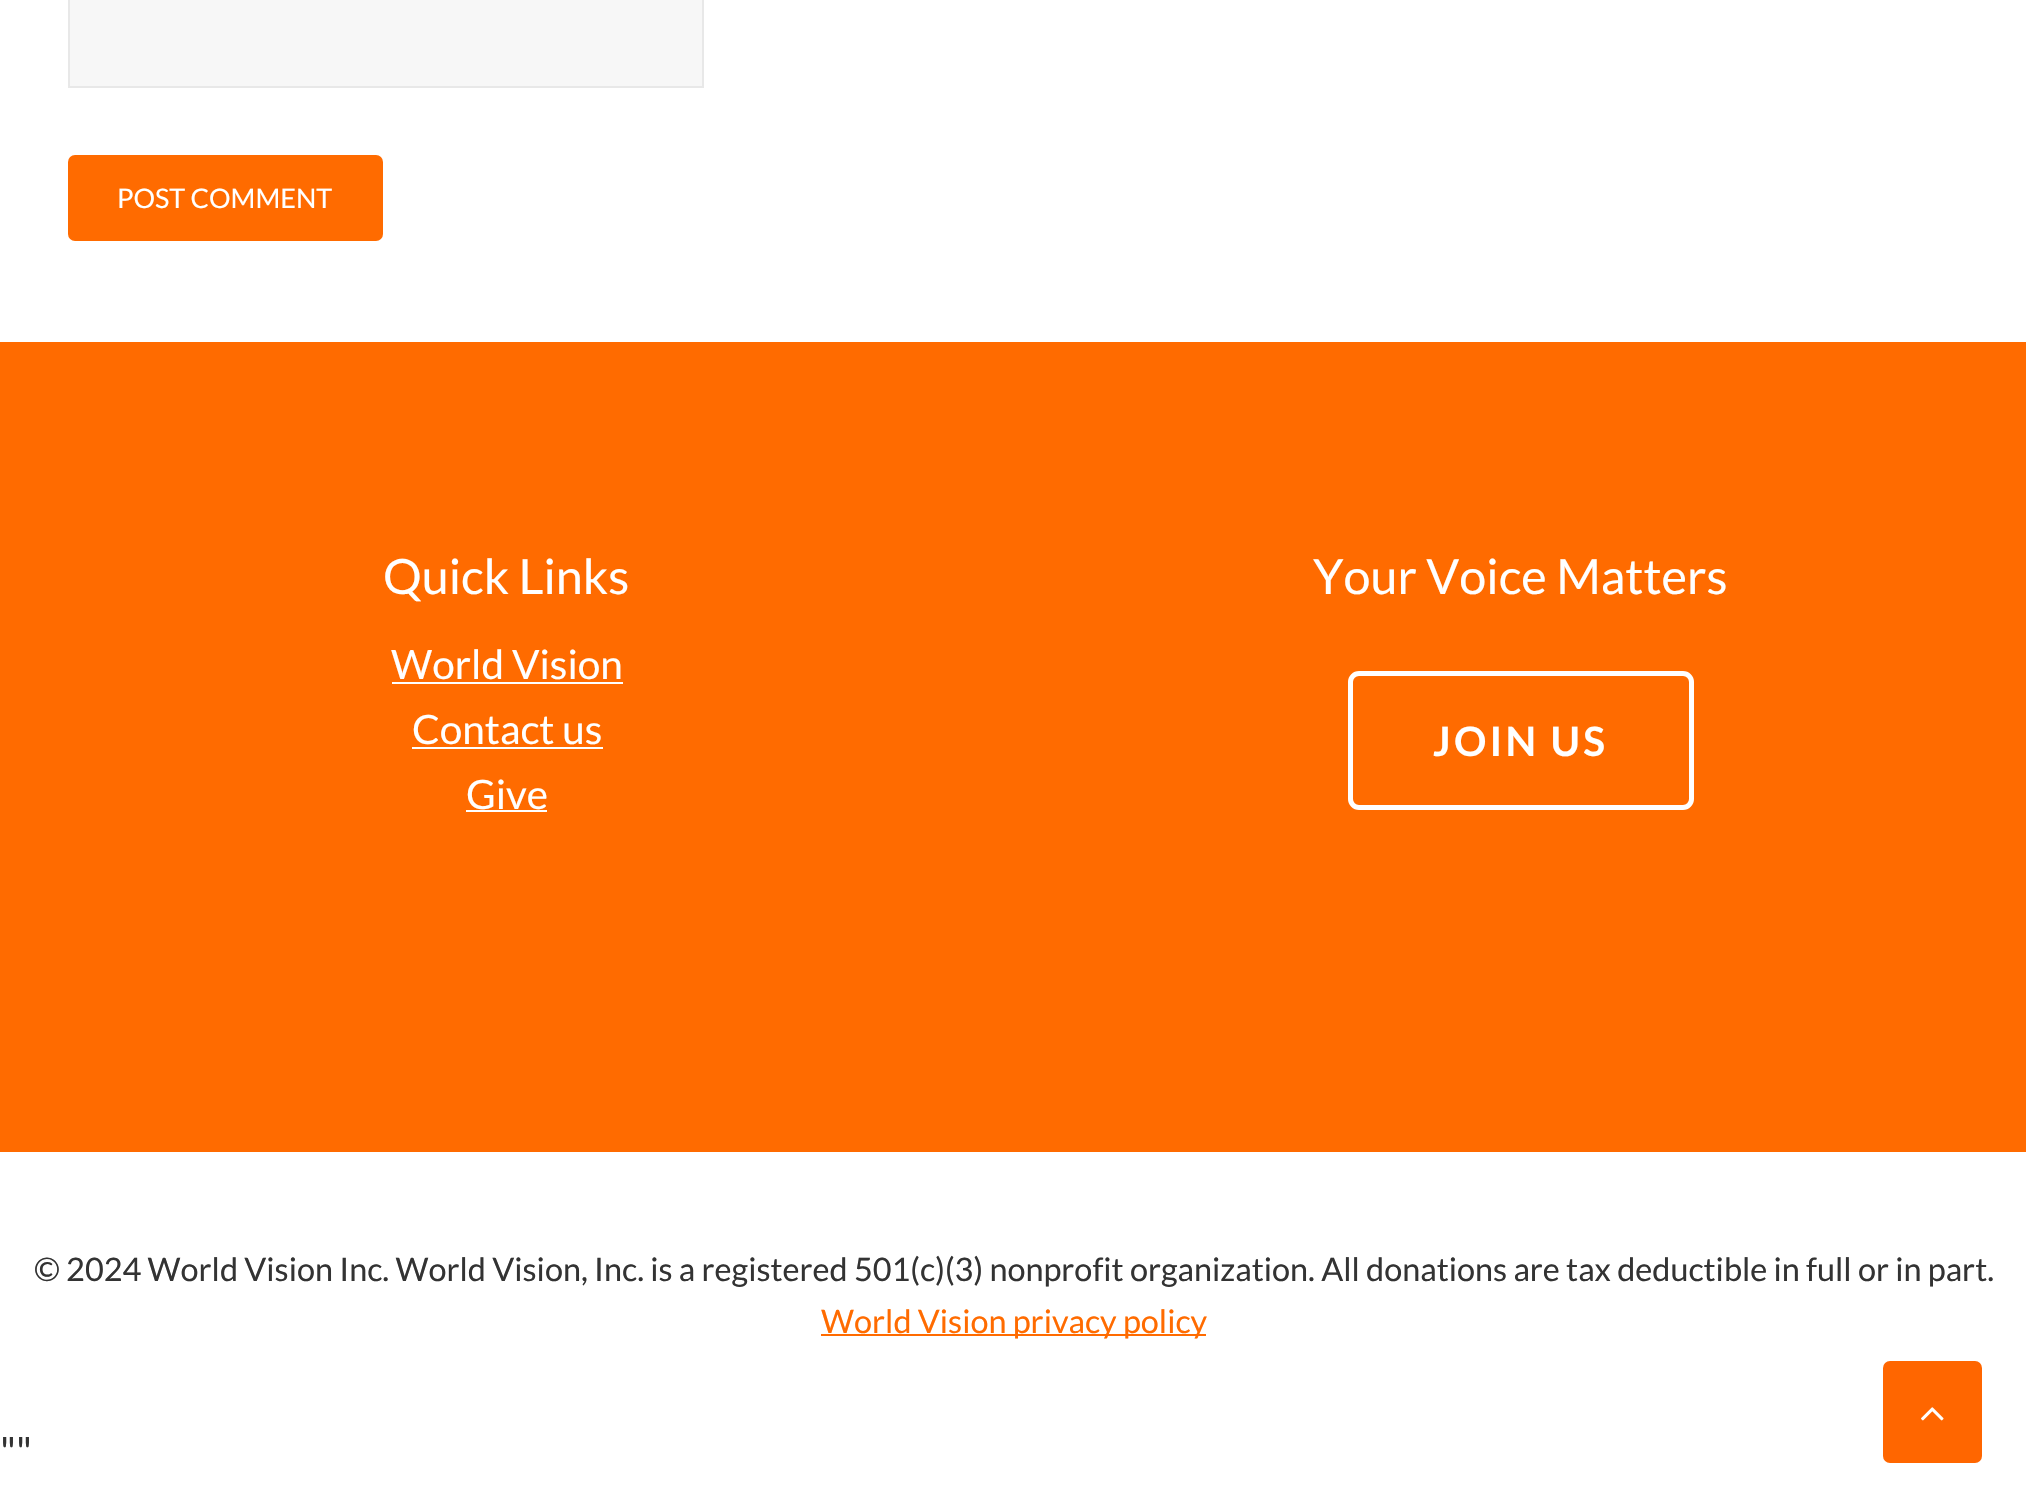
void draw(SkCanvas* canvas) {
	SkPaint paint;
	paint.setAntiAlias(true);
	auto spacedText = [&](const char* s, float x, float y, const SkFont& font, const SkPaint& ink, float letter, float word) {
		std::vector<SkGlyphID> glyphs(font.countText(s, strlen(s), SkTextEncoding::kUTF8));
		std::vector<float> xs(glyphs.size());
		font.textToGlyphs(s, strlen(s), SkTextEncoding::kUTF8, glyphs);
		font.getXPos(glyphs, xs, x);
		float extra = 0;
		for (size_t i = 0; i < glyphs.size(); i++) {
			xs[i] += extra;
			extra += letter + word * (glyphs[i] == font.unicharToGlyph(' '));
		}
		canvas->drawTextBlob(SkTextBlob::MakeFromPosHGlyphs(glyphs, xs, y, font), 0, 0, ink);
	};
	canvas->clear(0xffffffff);
	paint.setColor(0xfff7f7f7);
	canvas->drawRect(SkRect::MakeXYWH(69, -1, 634, 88), paint);
	paint.setStroke(true);
	paint.setStrokeWidth(2);
	paint.setColor(0xffe8e8e8);
	canvas->drawRect(SkRect::MakeXYWH(69, -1, 634, 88), paint);
	paint.setStroke(false);
	paint.setColor(0xffff6b00);
	canvas->drawRoundRect(SkRect::MakeXYWH(68, 155, 315, 86), 7, 7, paint);
	SkFont f1(fontMgr->matchFamilyStyle("Lato", SkFontStyle::Normal()), 27);
	f1.setSubpixel(true);
	paint.setColor(0xffffffff);
	canvas->drawString("POST COMMENT", 117, 208, f1, paint);
	paint.setColor(0xffff6b00);
	canvas->drawRect(SkRect::MakeXYWH(0, 342, 2026, 810), paint);
	SkFont f2(fontMgr->matchFamilyStyle("Lato", SkFontStyle::Normal()), 48.5);
	f2.setSubpixel(true);
	paint.setColor(0xffffffff);
	canvas->drawString("Quick Links", 383, 594, f2, paint);
	SkFont f3(fontMgr->matchFamilyStyle("Lato", SkFontStyle::Normal()), 40.5);
	f3.setSubpixel(true);
	canvas->drawString("World Vision", 391, 679, f3, paint);
	canvas->drawRect(SkRect::MakeXYWH(392, 682, 231, 2), paint);
	canvas->drawString("Contact us", 412, 744, f3, paint);
	canvas->drawRect(SkRect::MakeXYWH(412, 747, 191, 2), paint);
	canvas->drawString("Give", 466, 809, f3, paint);
	canvas->drawRect(SkRect::MakeXYWH(466, 810, 81, 2), paint);
	canvas->drawString("Your Voice Matters", 1313, 594, f2, paint);
	paint.setStroke(true);
	paint.setStrokeWidth(5);
	canvas->drawRoundRect(SkRect::MakeXYWH(1350.5, 673.5, 341, 134), 8.5, 8.5, paint);
	SkFont f4(fontMgr->matchFamilyStyle("Lato", SkFontStyle::Bold()), 40.5);
	f4.setSubpixel(true);
	paint.setStroke(false);
	spacedText("JOIN US", 1433, 756, f4, paint, 3.25, 0);
	SkFont f5(fontMgr->matchFamilyStyle("Lato", SkFontStyle::Normal()), 32.4);
	f5.setSubpixel(true);
	paint.setColor(0xff333333);
	canvas->drawString("© 2024 World Vision Inc. World Vision, Inc. is a registered 501(c)(3) nonprofit organization. All donations are tax deductible in full or in part.", 34, 1281, f5, paint);
	paint.setColor(0xffff6b00);
	canvas->drawRect(SkRect::MakeXYWH(821, 1334, 385, 2), paint);
	canvas->drawString("World Vision privacy policy", 821, 1333, f5, paint);
	paint.setColor(0xff333333);
	canvas->drawString("\"\"", 0, 1466, f3, paint);
	paint.setColor(0xffff6600);
	canvas->drawRoundRect(SkRect::MakeXYWH(1883, 1361, 99, 102), 7, 7, paint);
	canvas->drawImageRect(SkImages::DeferredFromEncodedData(SkData::MakeFromFileName("img1.png")), SkRect::MakeXYWH(1921, 1407, 23, 14), SkSamplingOptions());
}
